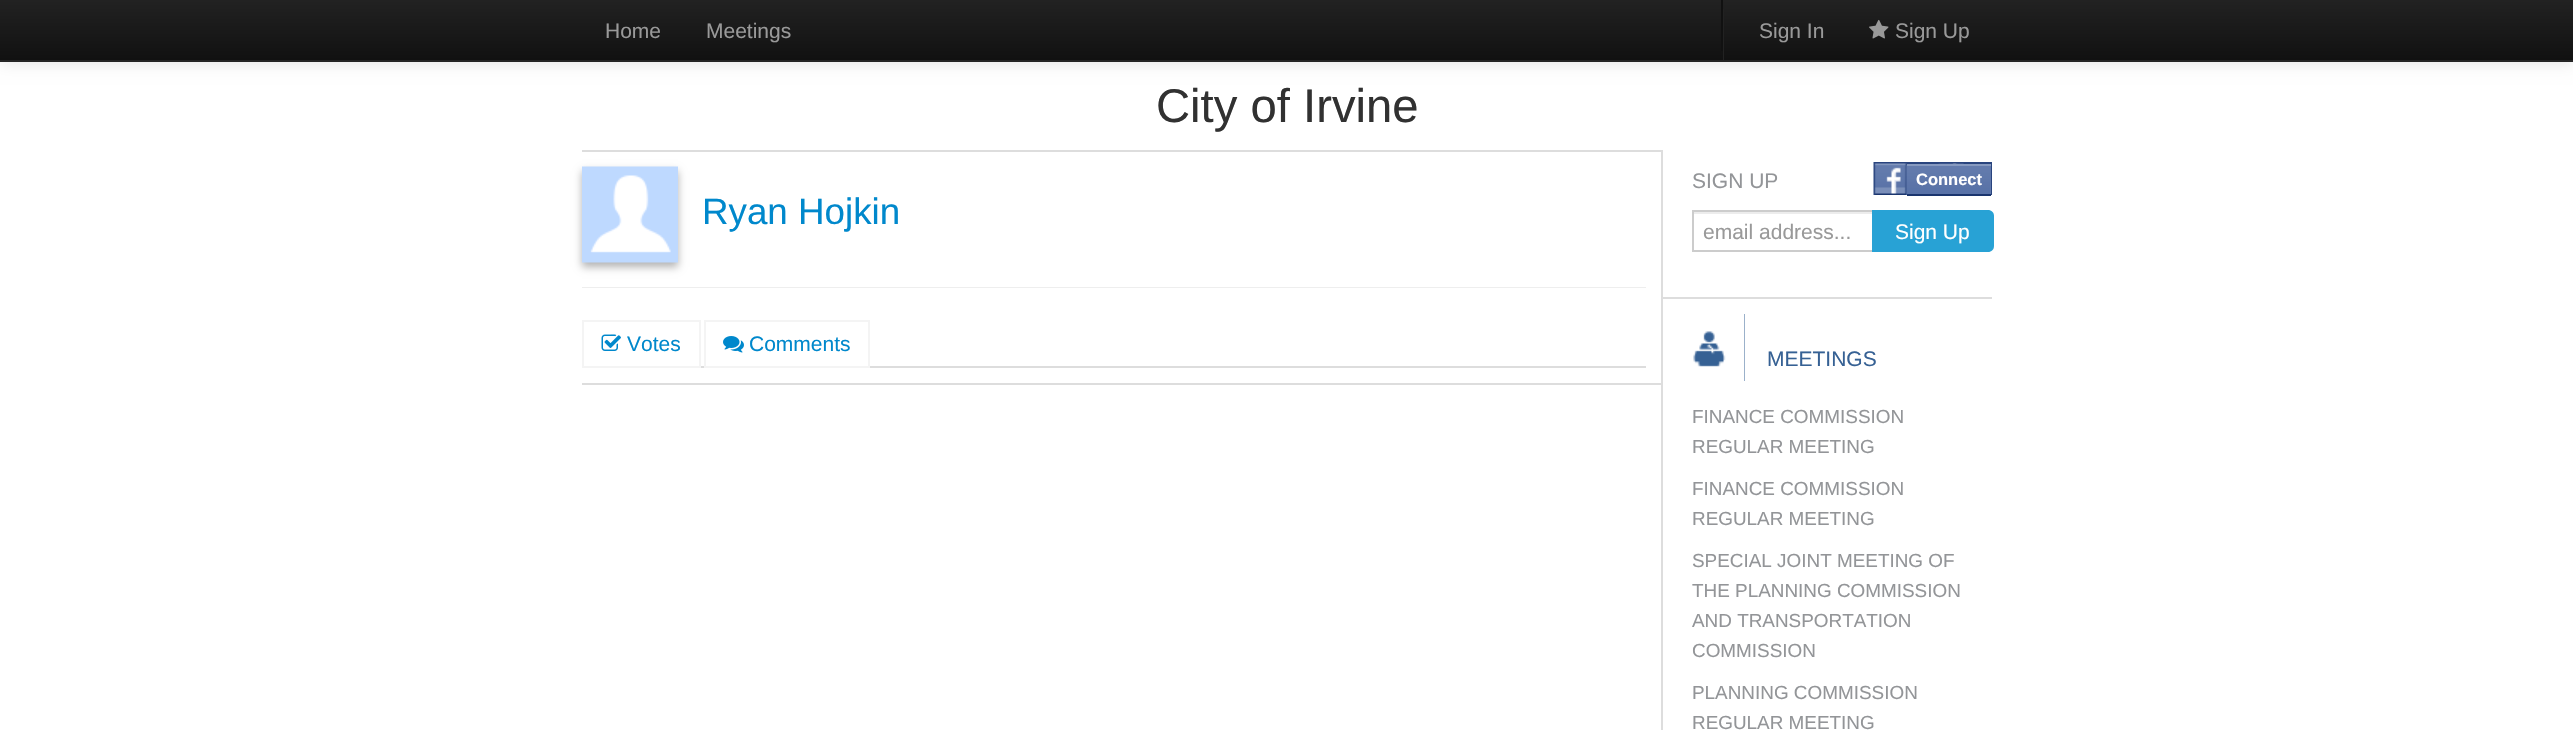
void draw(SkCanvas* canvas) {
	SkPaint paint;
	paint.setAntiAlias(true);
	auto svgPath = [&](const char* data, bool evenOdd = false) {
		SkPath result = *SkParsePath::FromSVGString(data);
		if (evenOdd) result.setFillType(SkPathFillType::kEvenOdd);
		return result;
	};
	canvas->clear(0xffffffff);
	paint.setColor(0x1a000000);
	paint.setMaskFilter(SkMaskFilter::MakeBlur(kNormal_SkBlurStyle, 7.5));
	canvas->drawRect(SkRect::MakeXYWH(0, 2, 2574, 61), paint);
	paint.setMaskFilter(nullptr);
	{
		const SkColor colors[] = {0xff222222, 0xff111111};
		const float stops[] = {0, 1};
		const SkPoint ends[] = {{1287, 0}, {1287, 60}};
		paint.setShader(SkGradientShader::MakeLinear(ends, colors, stops, 2, SkTileMode::kClamp));
		paint.setAlpha(255);
	}
	canvas->drawRect(SkRect::MakeXYWH(0, 0, 2573, 60), paint);
	paint.setShader(nullptr);
	paint.setColor(0xff252525);
	canvas->drawRect(SkRect::MakeXYWH(0, 60, 2573, 2), paint);
	SkFont f1(fontMgr->matchFamilyStyle("Liberation Sans", SkFontStyle::Normal()), 21);
	f1.setSubpixel(true);
	paint.setColor(0xff999999);
	canvas->drawString("Home", 605, 38, f1, paint);
	canvas->drawString("Meetings", 706, 38, f1, paint);
	paint.setColor(0xff222222);
	canvas->drawRect(SkRect::MakeXYWH(1723, 9, 1, 51), paint);
	paint.setColor(0xff111111);
	canvas->drawRect(SkRect::MakeXYWH(1721, 0, 2, 51), paint);
	paint.setColor(0xff999999);
	canvas->drawString("Sign In", 1759, 38, f1, paint);
	canvas->drawImageRect(SkImages::DeferredFromEncodedData(SkData::MakeFromFileName("img1.png")), SkRect::MakeXYWH(1869, 19, 20, 20), SkSamplingOptions());
	canvas->drawString("Sign Up", 1895, 38, f1, paint);
	SkFont f2(fontMgr->matchFamilyStyle("Liberation Sans", SkFontStyle::Normal()), 47.25);
	f2.setSubpixel(true);
	paint.setColor(0xff313131);
	canvas->drawString("City of Irvine", 1156, 122, f2, paint);
	paint.setColor(0xffdddddd);
	canvas->drawRect(SkRect::MakeXYWH(582, 150, 1080, 2), paint);
	canvas->drawRect(SkRect::MakeXYWH(1661, 150, 2, 30), paint);
	canvas->drawRect(SkRect::MakeXYWH(582, 383, 1080, 2), paint);
	paint.setColor(0x4d000000);
	paint.setMaskFilter(SkMaskFilter::MakeBlur(kNormal_SkBlurStyle, 4));
	canvas->drawRect(SkRect::MakeXYWH(582, 171, 96, 96), paint);
	paint.setMaskFilter(nullptr);
	canvas->drawImageRect(SkImages::DeferredFromEncodedData(SkData::MakeFromFileName("img2.png")), SkRect::MakeXYWH(582, 166, 96, 97), SkSamplingOptions());
	SkFont f3(fontMgr->matchFamilyStyle("Liberation Sans", SkFontStyle::Normal()), 36.75);
	f3.setSubpixel(true);
	paint.setColor(0xff0088cc);
	canvas->drawString("Ryan Hojkin", 702, 224, f3, paint);
	paint.setColor(0xffeeeeee);
	canvas->drawRect(SkRect::MakeXYWH(582, 287, 1064, 1), paint);
	paint.setColor(0xffdddddd);
	canvas->drawRect(SkRect::MakeXYWH(701, 366, 945, 2), paint);
	paint.setStroke(true);
	paint.setStrokeWidth(2);
	paint.setColor(0xfff4f4f4);
	canvas->drawRect(SkRect::MakeXYWH(583, 321, 117, 46), paint);
	canvas->drawImageRect(SkImages::DeferredFromEncodedData(SkData::MakeFromFileName("img3.png")), SkRect::MakeXYWH(601, 334, 20, 17), SkSamplingOptions());
	paint.setStroke(false);
	paint.setColor(0xff0088cc);
	canvas->drawString("Votes", 627, 351, f1, paint);
	paint.setStroke(true);
	paint.setColor(0xfff4f4f4);
	canvas->drawRect(SkRect::MakeXYWH(705, 321, 164, 46), paint);
	canvas->drawImageRect(SkImages::DeferredFromEncodedData(SkData::MakeFromFileName("img4.png")), SkRect::MakeXYWH(723, 336, 21, 17), SkSamplingOptions());
	paint.setStroke(false);
	paint.setColor(0xff0088cc);
	canvas->drawString("Comments", 749, 351, f1, paint);
	paint.setColor(0xffdddddd);
	canvas->drawRect(SkRect::MakeXYWH(1661, 180, 2, 550), paint);
	paint.setColor(0xff939598);
	canvas->drawString("SIGN UP", 1692, 188, f1, paint);
	paint.setColor(0xff29447e);
	canvas->drawRect(SkRect::MakeXYWH(1906, 162, 86, 33), paint);
	canvas->drawImageRect(SkImages::DeferredFromEncodedData(SkData::MakeFromFileName("img5.png")), SkRect::MakeXYWH(1873, 162, 34, 33), SkSamplingOptions());
	paint.setColor(0xff5f78ab);
	canvas->drawRect(SkRect::MakeXYWH(1990, 166, 1, 28), paint);
	canvas->drawImageRect(SkImages::DeferredFromEncodedData(SkData::MakeFromFileName("img6.png")), SkRect::MakeXYWH(1906, 163, 84, 32), SkSamplingOptions());
	paint.setColor(0xff879ac0);
	canvas->drawRect(SkRect::MakeXYWH(1907, 164, 84, 2), paint);
	paint.setColor(0xff1a356e);
	canvas->drawRect(SkRect::MakeXYWH(1907, 194, 84, 2), paint);
	SkFont f4(fontMgr->matchFamilyStyle("Liberation Sans", SkFontStyle::Bold()), 16.5);
	f4.setSubpixel(true);
	paint.setColor(0xffffffff);
	canvas->drawString("Connect", 1916, 185, f4, paint);
	paint.setColor(0xffececec);
	canvas->drawRect(SkRect::MakeXYWH(1694, 212, 178, 2), paint);
	paint.setStroke(true);
	paint.setColor(0xffcccccc);
	canvas->drawRect(SkRect::MakeXYWH(1693, 211, 180, 40), paint);
	paint.setStroke(false);
	paint.setColor(0xff999999);
	canvas->drawString("email address...", 1703, 239, f1, paint);
	paint.setColor(0xff28a2d5);
	canvas->drawPath(svgPath("M1872 210H1988C1991.5 210 1994 212.5 1994 216V246C1994 249.5 1991.5 252 1988 252H1872Z"), paint);
	paint.setColor(0xffffffff);
	canvas->drawString("Sign Up", 1895, 239, f1, paint);
	paint.setColor(0xffdddddd);
	canvas->drawRect(SkRect::MakeXYWH(1662, 297, 330, 2), paint);
	paint.setColor(0xff366194);
	canvas->drawRect(SkRect::MakeXYWH(1693, 314, 52, 67), paint);
	canvas->drawImageRect(SkImages::DeferredFromEncodedData(SkData::MakeFromFileName("img7.png")), SkRect::MakeXYWH(1692, 314, 53, 67), SkSamplingOptions());
	canvas->drawString("MEETINGS", 1767, 366, f1, paint);
	SkFont f5(fontMgr->matchFamilyStyle("Liberation Sans", SkFontStyle::Normal()), 18.9);
	f5.setSubpixel(true);
	paint.setColor(0xff939598);
	canvas->drawString("FINANCE COMMISSION", 1692, 423, f5, paint);
	canvas->drawString("REGULAR MEETING", 1692, 453, f5, paint);
	canvas->drawString("FINANCE COMMISSION", 1692, 495, f5, paint);
	canvas->drawString("REGULAR MEETING", 1692, 525, f5, paint);
	canvas->drawString("SPECIAL JOINT MEETING OF", 1692, 567, f5, paint);
	canvas->drawString("THE PLANNING COMMISSION", 1692, 597, f5, paint);
	canvas->drawString("AND TRANSPORTATION", 1692, 627, f5, paint);
	canvas->drawString("COMMISSION", 1692, 657, f5, paint);
	canvas->drawString("PLANNING COMMISSION", 1692, 699, f5, paint);
	canvas->drawString("REGULAR MEETING", 1692, 729, f5, paint);
}
